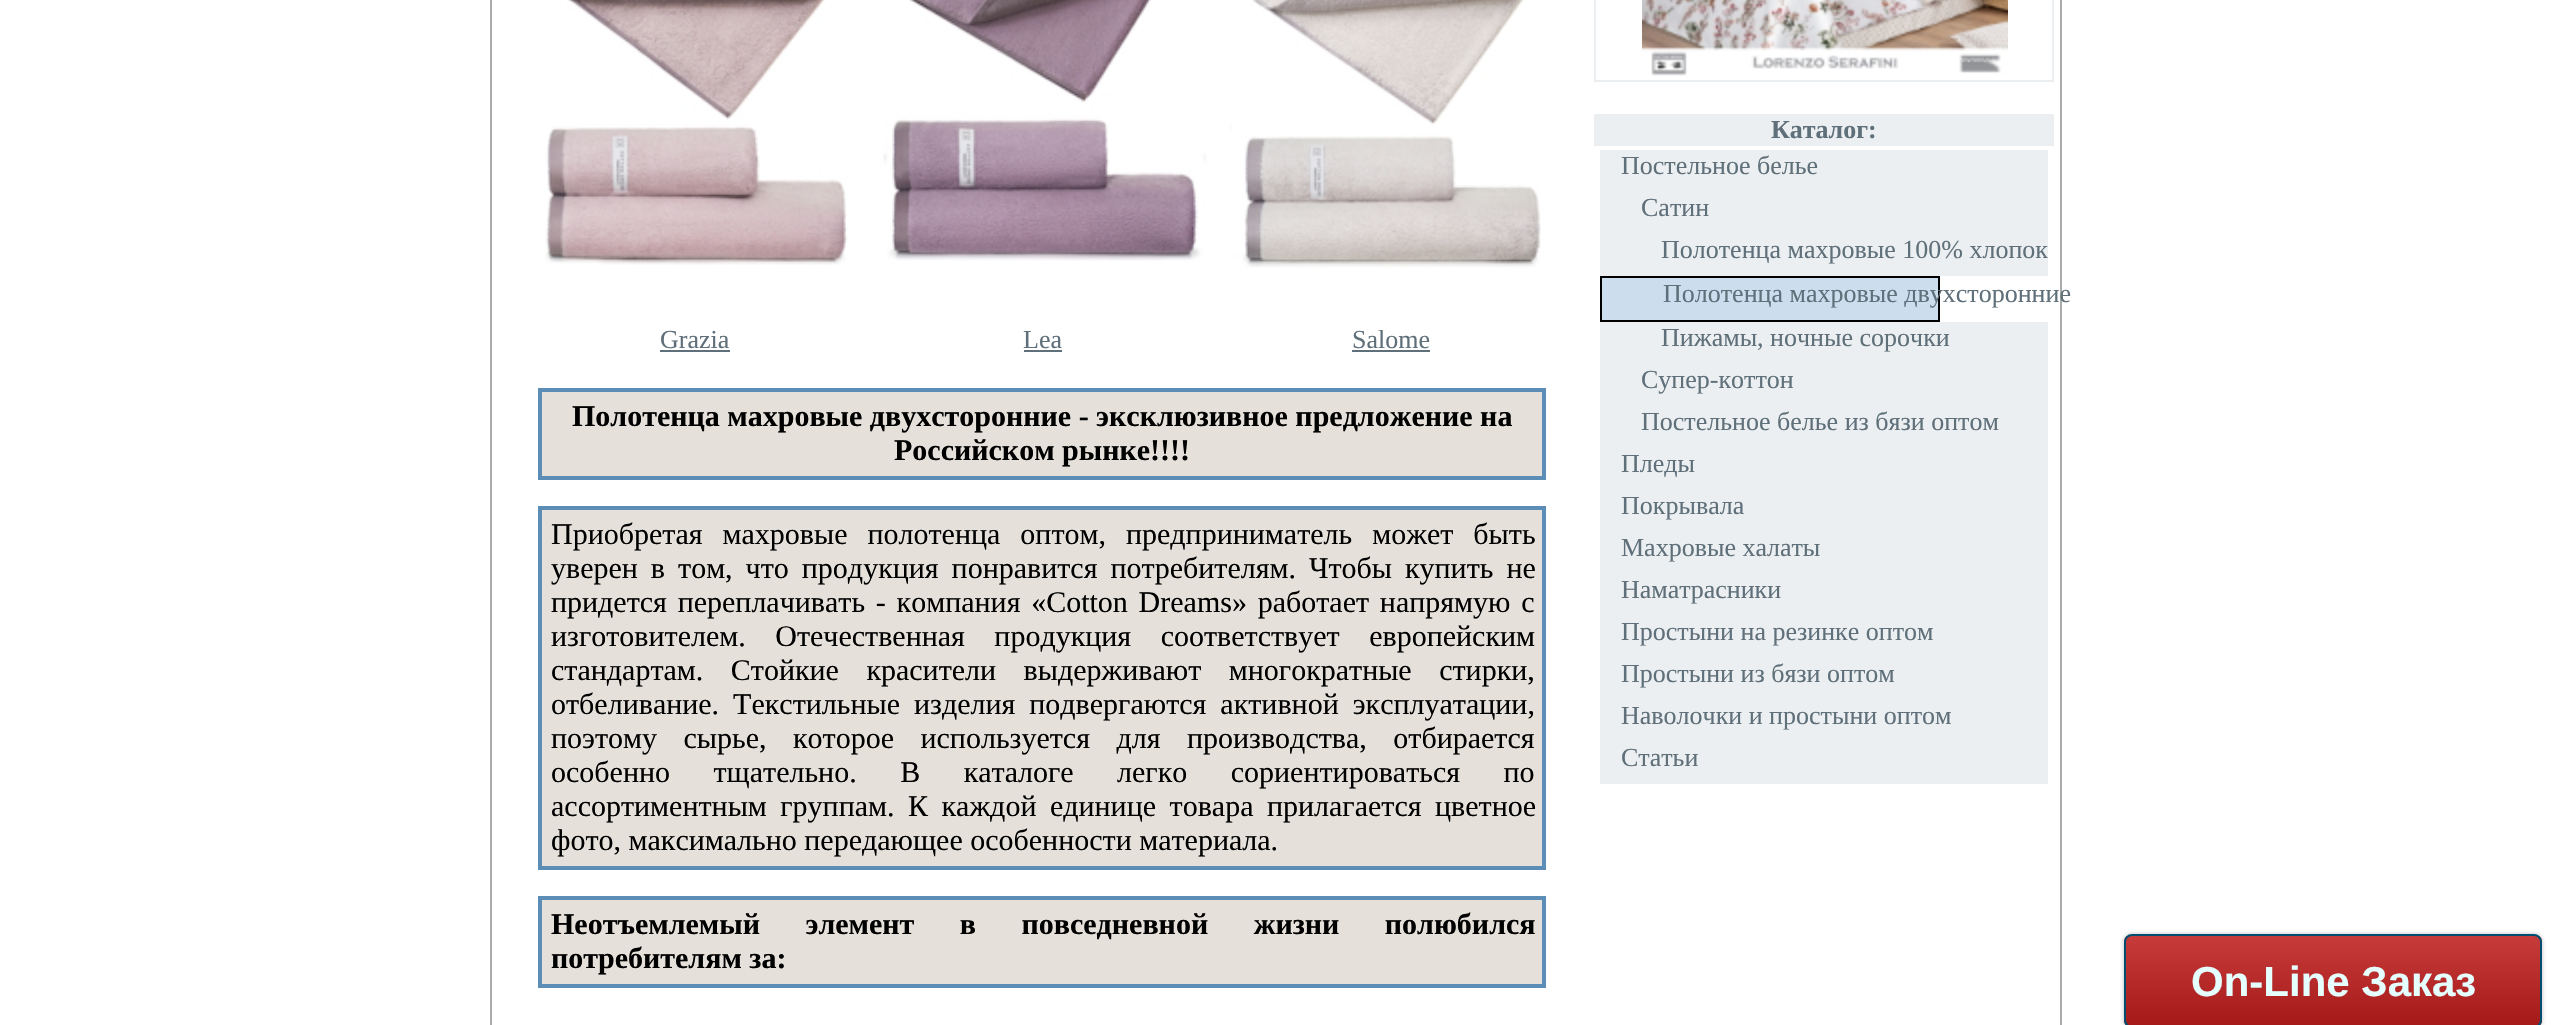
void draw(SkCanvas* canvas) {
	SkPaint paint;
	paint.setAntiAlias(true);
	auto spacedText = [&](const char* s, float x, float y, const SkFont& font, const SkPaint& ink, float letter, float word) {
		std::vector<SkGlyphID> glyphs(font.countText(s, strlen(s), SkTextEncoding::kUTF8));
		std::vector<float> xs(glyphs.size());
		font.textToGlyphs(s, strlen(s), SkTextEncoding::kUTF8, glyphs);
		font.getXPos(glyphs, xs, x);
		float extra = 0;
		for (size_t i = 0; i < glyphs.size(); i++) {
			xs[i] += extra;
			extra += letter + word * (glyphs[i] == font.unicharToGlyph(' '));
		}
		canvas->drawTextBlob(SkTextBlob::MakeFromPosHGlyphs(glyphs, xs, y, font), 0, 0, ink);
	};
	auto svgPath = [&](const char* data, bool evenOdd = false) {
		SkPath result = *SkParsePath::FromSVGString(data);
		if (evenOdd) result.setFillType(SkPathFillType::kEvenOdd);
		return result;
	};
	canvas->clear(0xffffffff);
	paint.setColor(0xffaaaaaa);
	canvas->drawRect(SkRect::MakeXYWH(490, 0, 1572, 1025), paint);
	paint.setColor(0xffffffff);
	canvas->drawRect(SkRect::MakeXYWH(492, 0, 1568, 1025), paint);
	canvas->drawImageRect(SkImages::DeferredFromEncodedData(SkData::MakeFromFileName("img1.png")), SkRect::MakeXYWH(545, 0, 303, 265), SkSamplingOptions());
	SkFont f1(fontMgr->matchFamilyStyle("Liberation Serif", SkFontStyle::Normal()), 26);
	f1.setSubpixel(true);
	paint.setColor(0xff60707a);
	canvas->drawString("Grazia", 660, 348, f1, paint);
	canvas->drawRect(SkRect::MakeXYWH(660, 350, 70, 2), paint);
	canvas->drawImageRect(SkImages::DeferredFromEncodedData(SkData::MakeFromFileName("img2.png")), SkRect::MakeXYWH(883, 0, 324, 261), SkSamplingOptions());
	canvas->drawString("Lea", 1023, 348, f1, paint);
	canvas->drawRect(SkRect::MakeXYWH(1024, 350, 38, 2), paint);
	canvas->drawImageRect(SkImages::DeferredFromEncodedData(SkData::MakeFromFileName("img3.png")), SkRect::MakeXYWH(1230, 0, 311, 268), SkSamplingOptions());
	canvas->drawString("Salome", 1352, 348, f1, paint);
	canvas->drawRect(SkRect::MakeXYWH(1352, 350, 78, 2), paint);
	paint.setColor(0xffe5e1da);
	canvas->drawRect(SkRect::MakeXYWH(540, 390, 1004, 88), paint);
	paint.setStroke(true);
	paint.setStrokeWidth(4);
	paint.setColor(0xff5b8db6);
	canvas->drawRect(SkRect::MakeXYWH(540, 390, 1004, 88), paint);
	SkFont f2(fontMgr->matchFamilyStyle("Liberation Serif", SkFontStyle::Bold()), 30);
	f2.setSubpixel(true);
	paint.setStroke(false);
	paint.setColor(0xff000000);
	canvas->drawString("Полотенца махровые двухсторонние - эксклюзивное предложение на", 572, 426, f2, paint);
	canvas->drawString("Российском рынке!!!!", 894, 460, f2, paint);
	paint.setColor(0xffe5e1da);
	canvas->drawRect(SkRect::MakeXYWH(540, 508, 1004, 360), paint);
	paint.setStroke(true);
	paint.setColor(0xff5b8db6);
	canvas->drawRect(SkRect::MakeXYWH(540, 508, 1004, 360), paint);
	SkFont f3(fontMgr->matchFamilyStyle("Liberation Serif", SkFontStyle::Normal()), 30);
	f3.setSubpixel(true);
	paint.setStroke(false);
	paint.setColor(0xff000000);
	spacedText("Приобретая махровые полотенца оптом, предприниматель может быть", 551, 544, f3, paint, 0, 12.5);
	spacedText("уверен в том, что продукция понравится потребителям. Чтобы купить не", 551, 578, f3, paint, 0, 5.5);
	spacedText("придется переплачивать - компания «Cotton Dreams» работает напрямую с", 551, 612, f3, paint, 0, 3.25);
	spacedText("изготовителем. Отечественная продукция соответствует европейским", 551, 646, f3, paint, 0, 22);
	spacedText("стандартам. Стойкие красители выдерживают многократные стирки,", 551, 680, f3, paint, 0, 20);
	spacedText("отбеливание. Текстильные изделия подвергаются активной эксплуатации,", 551, 714, f3, paint, 0, 6.5);
	spacedText("поэтому сырье, которое используется для производства, отбирается", 551, 748, f3, paint, 0, 19);
	spacedText("особенно тщательно. В каталоге легко сориентироваться по", 551, 782, f3, paint, 0, 36);
	spacedText("ассортиментным группам. К каждой единице товара прилагается цветное", 551, 816, f3, paint, 0, 6);
	canvas->drawString("фото, максимально передающее особенности материала.", 551, 850, f3, paint);
	paint.setColor(0xffe5e1da);
	canvas->drawRect(SkRect::MakeXYWH(540, 898, 1004, 88), paint);
	paint.setStroke(true);
	paint.setColor(0xff5b8db6);
	canvas->drawRect(SkRect::MakeXYWH(540, 898, 1004, 88), paint);
	paint.setStroke(false);
	paint.setColor(0xff000000);
	spacedText("Неотъемлемый элемент в повседневной жизни полюбился", 551, 934, f2, paint, 0, 38);
	canvas->drawString("потребителям за:", 551, 968, f2, paint);
	paint.setColor(0xffebeff1);
	canvas->drawRect(SkRect::MakeXYWH(2052, 0, 2, 82), paint);
	canvas->drawRect(SkRect::MakeXYWH(1594, 80, 460, 2), paint);
	canvas->drawRect(SkRect::MakeXYWH(1594, 0, 2, 82), paint);
	canvas->drawImageRect(SkImages::DeferredFromEncodedData(SkData::MakeFromFileName("img4.png")), SkRect::MakeXYWH(1642, 0, 366, 76), SkSamplingOptions());
	canvas->drawRect(SkRect::MakeXYWH(1594, 114, 460, 32), paint);
	SkFont f4(fontMgr->matchFamilyStyle("Liberation Serif", SkFontStyle::Bold()), 26);
	f4.setSubpixel(true);
	paint.setColor(0xff60707a);
	canvas->drawString("Каталог:", 1771, 138, f4, paint);
	paint.setColor(0xffebeff1);
	canvas->drawRect(SkRect::MakeXYWH(1600, 150, 448, 126), paint);
	paint.setColor(0xff60707a);
	canvas->drawString("Постельное белье", 1621, 174, f1, paint);
	canvas->drawString("Сатин", 1641, 216, f1, paint);
	canvas->drawString("Полотенца махровые 100% хлопок", 1661, 258, f1, paint);
	paint.setColor(0xffccddee);
	canvas->drawRect(SkRect::MakeXYWH(1601, 277, 338, 44), paint);
	paint.setStroke(true);
	paint.setStrokeWidth(2);
	paint.setColor(0xff000000);
	canvas->drawRect(SkRect::MakeXYWH(1601, 277, 338, 44), paint);
	paint.setStroke(false);
	paint.setColor(0xff60707a);
	canvas->drawString("Полотенца махровые двухсторонние", 1663, 302, f1, paint);
	paint.setColor(0xffebeff1);
	canvas->drawRect(SkRect::MakeXYWH(1600, 322, 448, 462), paint);
	paint.setColor(0xff60707a);
	canvas->drawString("Пижамы, ночные сорочки", 1661, 346, f1, paint);
	canvas->drawString("Супер-коттон", 1641, 388, f1, paint);
	canvas->drawString("Постельное белье из бязи оптом", 1641, 430, f1, paint);
	canvas->drawString("Пледы", 1621, 472, f1, paint);
	canvas->drawString("Покрывала", 1621, 514, f1, paint);
	canvas->drawString("Махровые халаты", 1621, 556, f1, paint);
	canvas->drawString("Наматрасники", 1621, 598, f1, paint);
	canvas->drawString("Простыни на резинке оптом", 1621, 640, f1, paint);
	canvas->drawString("Простыни из бязи оптом", 1621, 682, f1, paint);
	canvas->drawString("Наволочки и простыни оптом", 1621, 724, f1, paint);
	canvas->drawString("Статьи", 1621, 766, f1, paint);
	paint.setColor(0xffbababa);
	paint.setMaskFilter(SkMaskFilter::MakeBlur(kNormal_SkBlurStyle, 2));
	canvas->drawRoundRect(SkRect::MakeXYWH(2124, 934, 418, 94), 8, 8, paint);
	paint.setMaskFilter(nullptr);
	canvas->save();
	canvas->clipPath(svgPath("M2132 934H2534C2538.5 934 2542 937.5 2542 942V1020C2542 1024.5 2538.5 1028 2534 1028H2132C2127.5 1028 2124 1024.5 2124 1020V942C2124 937.5 2127.5 934 2132 934Z"), true);
	{
		const SkColor colors[] = {0xffc73b3b, 0xffa51919};
		const float stops[] = {0, 1};
		const SkPoint ends[] = {{2333, 936}, {2333, 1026}};
		paint.setShader(SkGradientShader::MakeLinear(ends, colors, stops, 2, SkTileMode::kClamp));
		paint.setAlpha(255);
	}
	canvas->drawRect(SkRect::MakeXYWH(2124, 936, 418, 89), paint);
	canvas->restore();
	paint.setStroke(true);
	paint.setShader(nullptr);
	paint.setColor(0xff004f72);
	canvas->drawRoundRect(SkRect::MakeXYWH(2125, 935, 416, 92), 7, 7, paint);
	SkFont f5(fontMgr->matchFamilyStyle("Liberation Sans", SkFontStyle::Bold()), 42);
	f5.setSubpixel(true);
	paint.setStroke(false);
	paint.setColor(0xffe5ffff);
	canvas->drawString("On-Line Заказ", 2191, 996, f5, paint);
}
